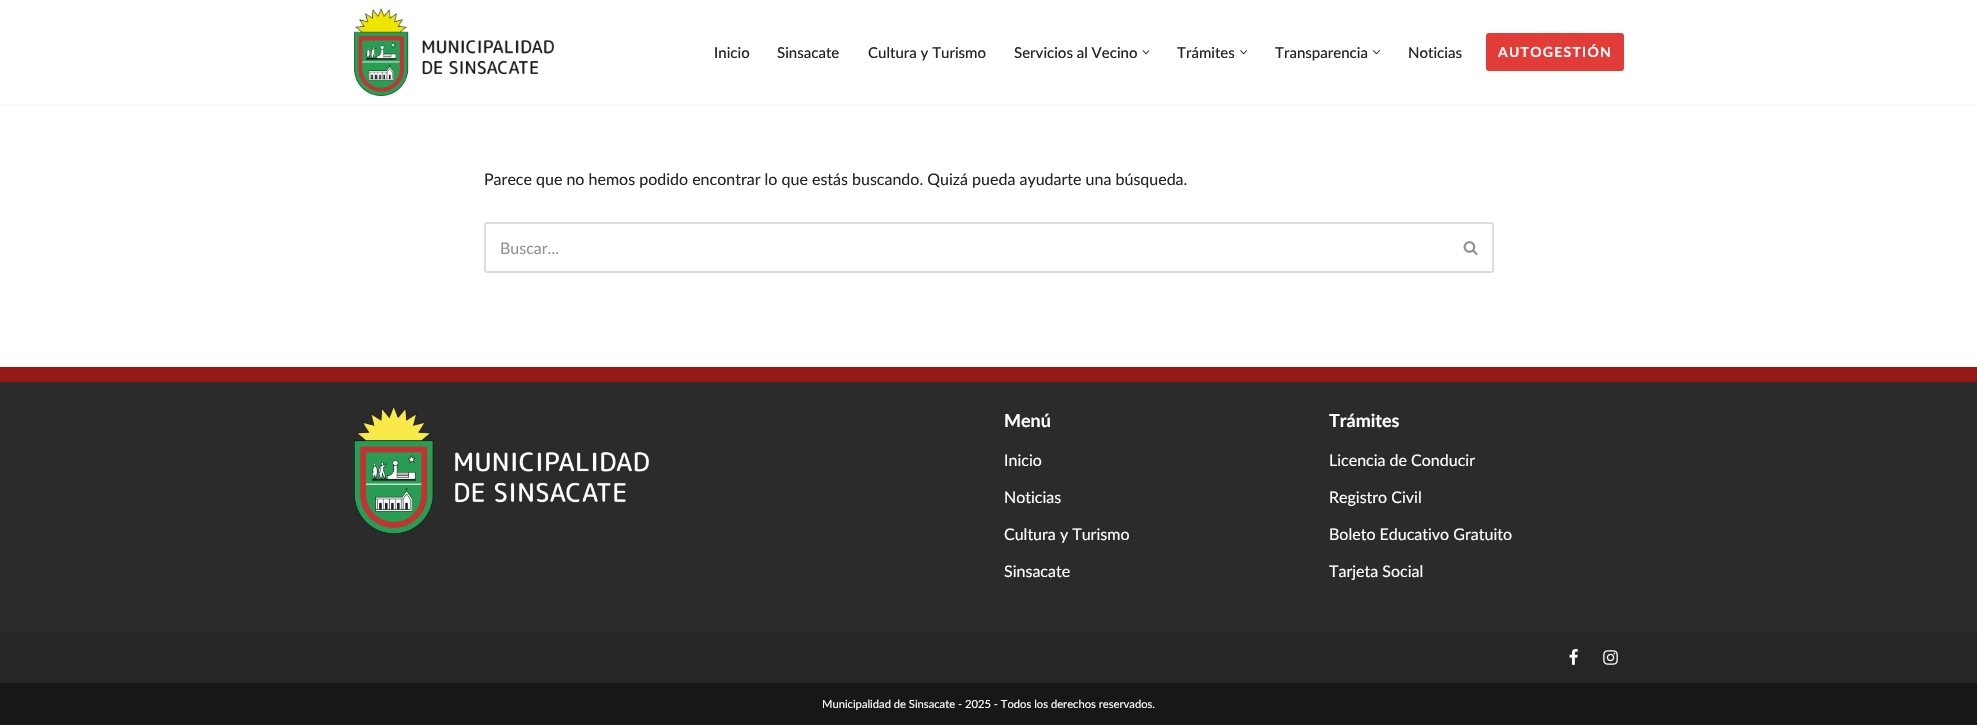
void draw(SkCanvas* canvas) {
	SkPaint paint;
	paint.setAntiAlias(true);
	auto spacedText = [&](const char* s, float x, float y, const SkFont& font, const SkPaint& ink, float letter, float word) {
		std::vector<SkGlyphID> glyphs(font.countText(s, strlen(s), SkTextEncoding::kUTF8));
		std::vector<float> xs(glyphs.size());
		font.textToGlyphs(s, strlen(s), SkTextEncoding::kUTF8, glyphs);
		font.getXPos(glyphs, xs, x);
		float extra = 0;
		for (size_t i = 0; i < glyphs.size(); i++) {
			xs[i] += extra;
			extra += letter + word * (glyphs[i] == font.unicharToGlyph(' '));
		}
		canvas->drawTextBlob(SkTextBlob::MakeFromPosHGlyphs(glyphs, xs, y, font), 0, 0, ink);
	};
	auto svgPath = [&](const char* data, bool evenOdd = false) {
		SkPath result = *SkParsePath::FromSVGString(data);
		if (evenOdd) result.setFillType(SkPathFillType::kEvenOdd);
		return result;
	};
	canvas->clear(0xffffffff);
	paint.setColor(0xfffafafa);
	canvas->drawRect(SkRect::MakeXYWH(0, 104, 1977, 1), paint);
	canvas->drawImageRect(SkImages::DeferredFromEncodedData(SkData::MakeFromFileName("img1.png")), SkRect::MakeXYWH(354, 8, 200, 88), SkSamplingOptions());
	SkFont f1(fontMgr->matchFamilyStyle("Lato", SkFontStyle(500, SkFontStyle::kNormal_Width, SkFontStyle::kUpright_Slant)), 15);
	f1.setSubpixel(true);
	paint.setColor(0xff262624);
	canvas->drawString("Inicio", 714, 58, f1, paint);
	canvas->drawString("Sinsacate", 777, 58, f1, paint);
	canvas->drawString("Cultura y Turismo", 868, 58, f1, paint);
	canvas->drawString("Servicios al Vecino", 1014, 58, f1, paint);
	canvas->drawImageRect(SkImages::DeferredFromEncodedData(SkData::MakeFromFileName("img2.png")), SkRect::MakeXYWH(1142, 50, 7, 5), SkSamplingOptions());
	canvas->drawString("Trámites", 1177, 58, f1, paint);
	canvas->drawImageRect(SkImages::DeferredFromEncodedData(SkData::MakeFromFileName("img3.png")), SkRect::MakeXYWH(1240, 50, 7, 5), SkSamplingOptions());
	canvas->drawString("Transparencia", 1275, 58, f1, paint);
	canvas->drawImageRect(SkImages::DeferredFromEncodedData(SkData::MakeFromFileName("img4.png")), SkRect::MakeXYWH(1373, 50, 7, 5), SkSamplingOptions());
	canvas->drawString("Noticias", 1408, 58, f1, paint);
	paint.setColor(0xffe23c39);
	canvas->drawRoundRect(SkRect::MakeXYWH(1486, 33, 138, 38), 3, 3, paint);
	SkFont f2(fontMgr->matchFamilyStyle("Lato", SkFontStyle::Bold()), 14);
	f2.setSubpixel(true);
	paint.setColor(0xffffffff);
	spacedText("AUTOGESTIÓN", 1498, 57, f2, paint, 1.25, 0);
	SkFont f3(fontMgr->matchFamilyStyle("Lato", SkFontStyle::Normal()), 16);
	f3.setSubpixel(true);
	paint.setColor(0xff262624);
	canvas->drawString("Parece que no hemos podido encontrar lo que estás buscando. Quizá pueda ayudarte una búsqueda.", 484, 185, f3, paint);
	paint.setColor(0xffdddddd);
	canvas->drawPath(svgPath("M487 222H1449V273H487C485 273 484 272 484 270V225C484 223 485 222 487 222ZM487 224H1449V271H487C486 271 486 271 486 270V225C486 224 486 224 487 224Z", true), paint);
	paint.setColor(0xff939392);
	canvas->drawString("Buscar...", 500, 254, f3, paint);
	paint.setColor(0xffdddddd);
	canvas->drawPath(svgPath("M1449 222H1491C1493 222 1494 223 1494 225V270C1494 272 1493 273 1491 273H1449ZM1449 224H1491C1492 224 1492 224 1492 225V270C1492 271 1492 271 1491 271H1449Z", true), paint);
	canvas->drawImageRect(SkImages::DeferredFromEncodedData(SkData::MakeFromFileName("img5.png")), SkRect::MakeXYWH(1463, 241, 15, 14), SkSamplingOptions());
	paint.setColor(0xff2b2b2b);
	canvas->drawRect(SkRect::MakeXYWH(0, 382, 1977, 250), paint);
	paint.setColor(0xff961917);
	canvas->drawRect(SkRect::MakeXYWH(0, 367, 1977, 15), paint);
	canvas->drawImageRect(SkImages::DeferredFromEncodedData(SkData::MakeFromFileName("img6.png")), SkRect::MakeXYWH(354, 405, 295, 129), SkSamplingOptions());
	SkFont f4(fontMgr->matchFamilyStyle("Lato", SkFontStyle::Bold()), 18);
	f4.setSubpixel(true);
	paint.setColor(0xffffffff);
	canvas->drawString("Menú", 1004, 427, f4, paint);
	canvas->drawString("Inicio", 1004, 466, f3, paint);
	canvas->drawString("Noticias", 1004, 503, f3, paint);
	canvas->drawString("Cultura y Turismo", 1004, 540, f3, paint);
	canvas->drawString("Sinsacate", 1004, 577, f3, paint);
	canvas->drawString("Trámites", 1329, 427, f4, paint);
	canvas->drawString("Licencia de Conducir", 1329, 466, f3, paint);
	canvas->drawString("Registro Civil", 1329, 503, f3, paint);
	canvas->drawString("Boleto Educativo Gratuito", 1329, 540, f3, paint);
	canvas->drawString("Tarjeta Social", 1329, 577, f3, paint);
	paint.setColor(0xff272626);
	canvas->drawRect(SkRect::MakeXYWH(0, 632, 1977, 51), paint);
	canvas->drawImageRect(SkImages::DeferredFromEncodedData(SkData::MakeFromFileName("img7.png")), SkRect::MakeXYWH(1569, 649, 9, 16), SkSamplingOptions());
	canvas->drawImageRect(SkImages::DeferredFromEncodedData(SkData::MakeFromFileName("img8.png")), SkRect::MakeXYWH(1603, 650, 15, 15), SkSamplingOptions());
	paint.setColor(0xff171717);
	canvas->drawRect(SkRect::MakeXYWH(0, 683, 1977, 42), paint);
	SkFont f5(fontMgr->matchFamilyStyle("Lato", SkFontStyle::Normal()), 11.2);
	f5.setSubpixel(true);
	paint.setColor(0xffffffff);
	canvas->drawString("Municipalidad de Sinsacate - 2025 - Todos los derechos reservados.", 822, 708, f5, paint);
}
